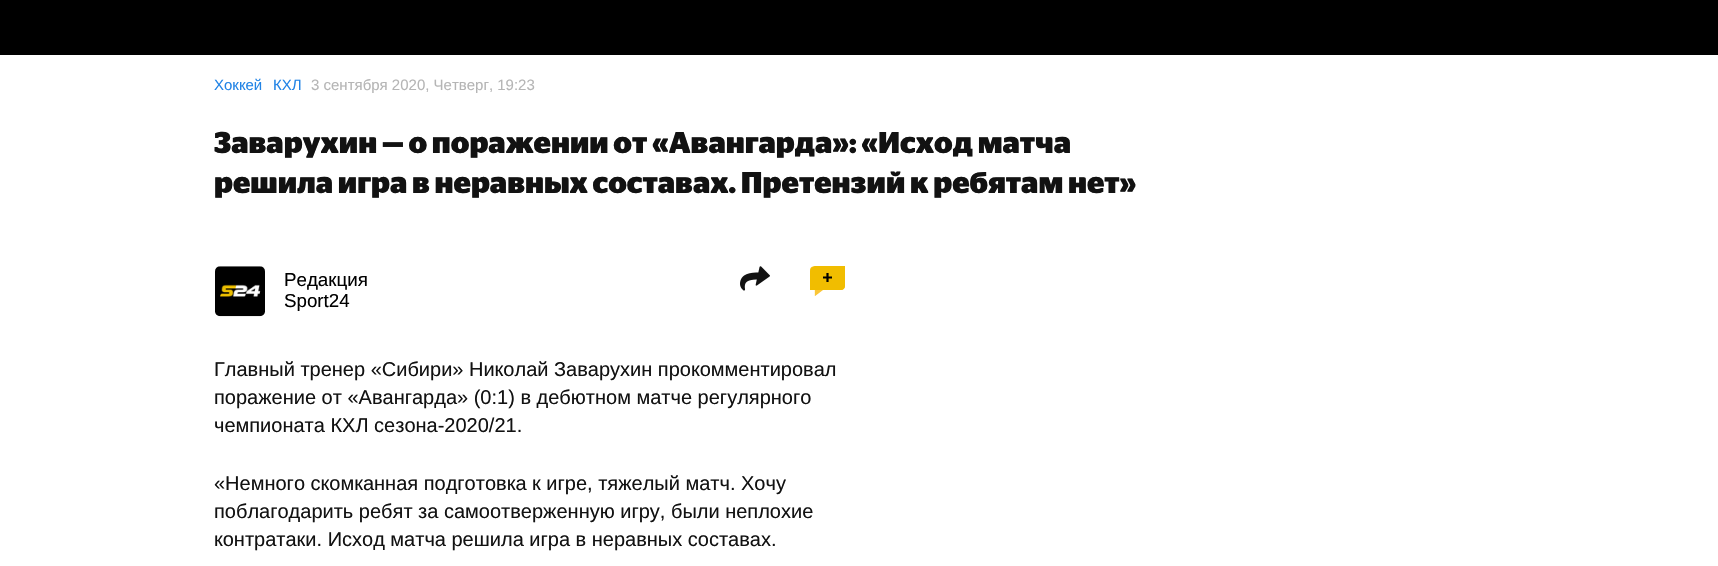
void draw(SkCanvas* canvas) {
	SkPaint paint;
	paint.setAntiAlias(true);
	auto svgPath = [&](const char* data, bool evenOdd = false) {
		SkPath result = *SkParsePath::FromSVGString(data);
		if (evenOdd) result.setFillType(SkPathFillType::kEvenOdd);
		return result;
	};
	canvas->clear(0xffffffff);
	paint.setColor(0xff000000);
	canvas->drawRect(SkRect::MakeXYWH(0, 0, 1718, 55), paint);
	SkFont f1(fontMgr->matchFamilyStyle("Liberation Sans", SkFontStyle::Normal()), 15);
	f1.setSubpixel(true);
	paint.setColor(0xff2284e6);
	canvas->drawString("Хоккей", 214, 90, f1, paint);
	canvas->drawString("КХЛ", 273, 90, f1, paint);
	paint.setColor(0xffb5b5b5);
	canvas->drawString("3 сентября 2020, Четверг, 19:23", 311, 90, f1, paint);
	SkFont f2(fontMgr->matchFamilyStyle("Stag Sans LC", SkFontStyle::Bold()), 30);
	f2.setSubpixel(true);
	paint.setColor(0xff121212);
	canvas->drawString("Заварухин — о поражении от «Авангарда»: «Исход матча", 214, 153, f2, paint);
	canvas->drawString("решила игра в неравных составах. Претензий к ребятам нет»", 214, 193, f2, paint);
	paint.setColor(0xfff8f8f8);
	canvas->drawRoundRect(SkRect::MakeXYWH(215, 266, 50, 50), 5, 5, paint);
	canvas->drawImageRect(SkImages::DeferredFromEncodedData(SkData::MakeFromFileName("img1.png")), SkRect::MakeXYWH(215, 266, 50, 51), SkSamplingOptions());
	SkFont f3(fontMgr->matchFamilyStyle("Liberation Sans", SkFontStyle::Normal()), 18.75);
	f3.setSubpixel(true);
	paint.setColor(0xff000000);
	canvas->drawString("Редакция", 284, 286, f3, paint);
	canvas->drawString("Sport24", 284, 307, f3, paint);
	canvas->drawImageRect(SkImages::DeferredFromEncodedData(SkData::MakeFromFileName("img2.png")), SkRect::MakeXYWH(740, 266, 30, 25), SkSamplingOptions());
	canvas->drawImageRect(SkImages::DeferredFromEncodedData(SkData::MakeFromFileName("img3.png")), SkRect::MakeXYWH(810, 266, 35, 30), SkSamplingOptions());
	paint.setColor(0xfff1bd00);
	canvas->drawPath(svgPath("M816 266H845V286C845 288 843 290 841 290H810V272C810 268.5 812.5 266 816 266Z"), paint);
	paint.setStroke(true);
	paint.setStrokeWidth(2.2);
	paint.setColor(0xff000000);
	canvas->drawPath(svgPath("M823 277.5H832M827.5 273V282"), paint);
	SkFont f4(fontMgr->matchFamilyStyle("Liberation Sans", SkFontStyle::Normal()), 20);
	f4.setSubpixel(true);
	paint.setStroke(false);
	paint.setColor(0xff121212);
	canvas->drawString("Главный тренер «Сибири» Николай Заварухин прокомментировал", 214, 376, f4, paint);
	canvas->drawString("поражение от «Авангарда» (0:1) в дебютном матче регулярного", 214, 404, f4, paint);
	canvas->drawString("чемпионата КХЛ сезона-2020/21.", 214, 432, f4, paint);
	canvas->drawString("«Немного скомканная подготовка к игре, тяжелый матч. Хочу", 214, 490, f4, paint);
	canvas->drawString("поблагодарить ребят за самоотверженную игру, были неплохие", 214, 518, f4, paint);
	canvas->drawString("контратаки. Исход матча решила игра в неравных составах.", 214, 546, f4, paint);
}
